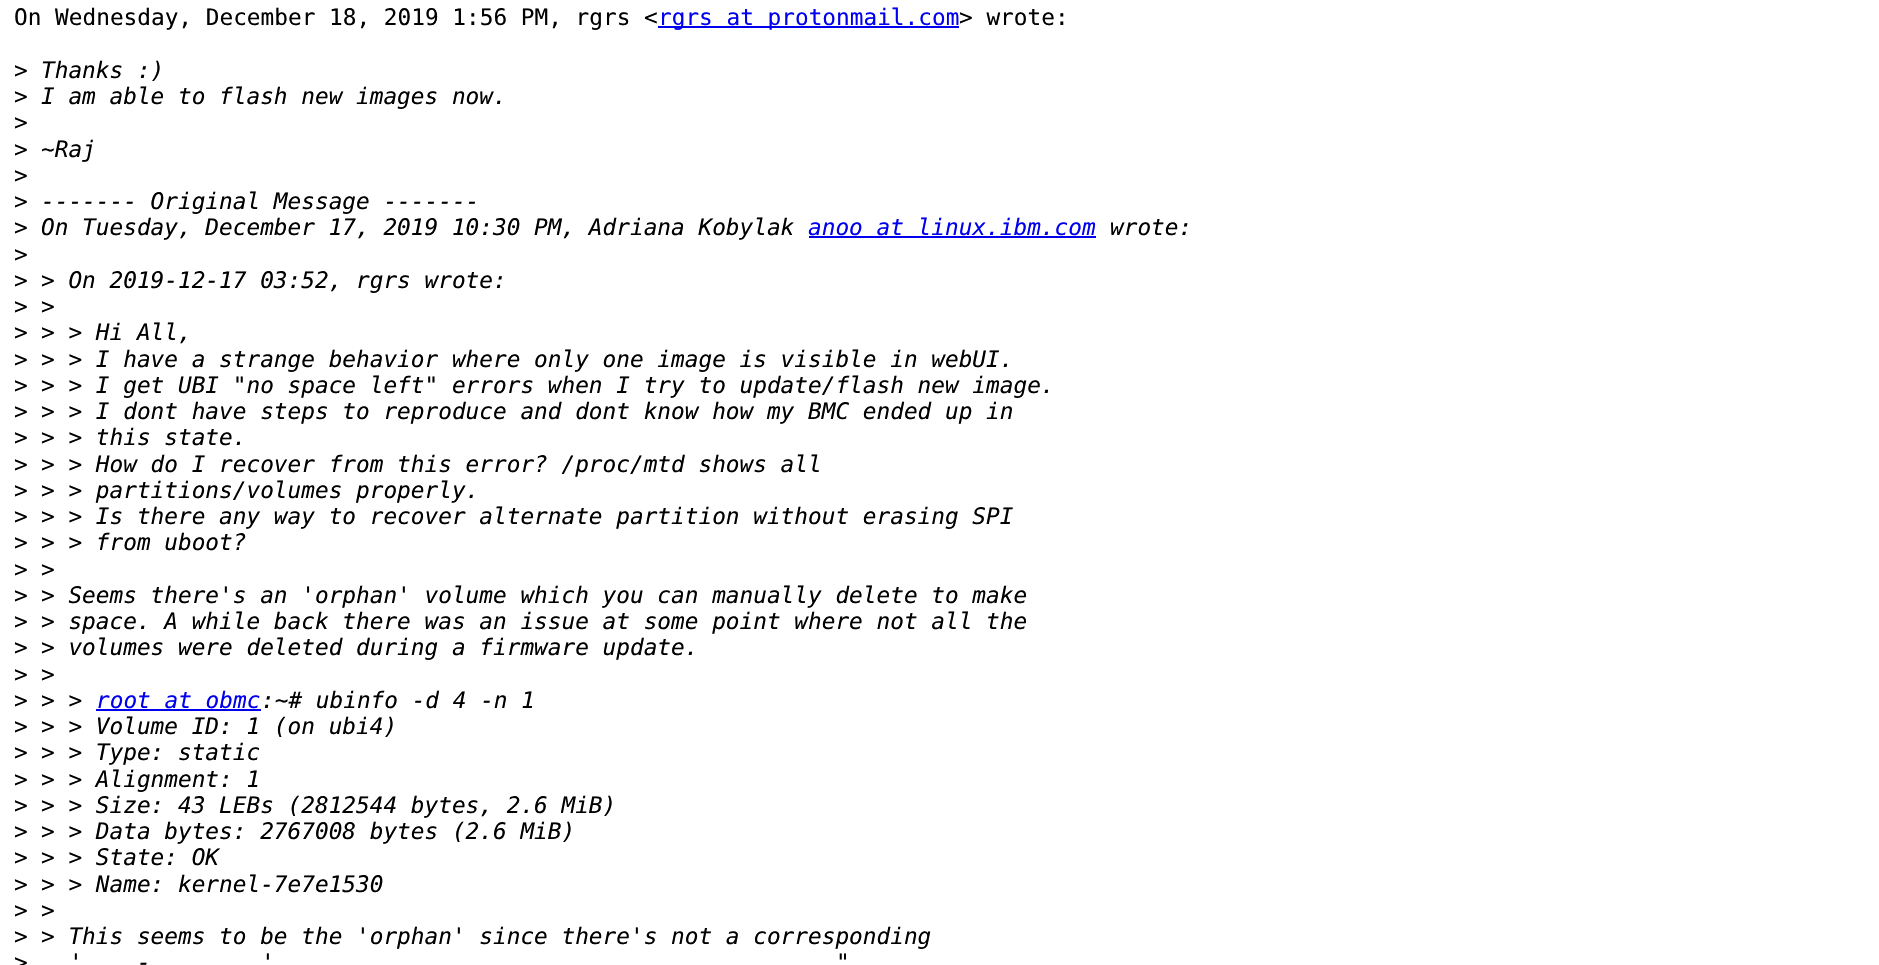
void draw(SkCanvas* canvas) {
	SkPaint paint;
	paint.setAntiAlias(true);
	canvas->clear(0xffffffff);
	SkFont f1(fontMgr->matchFamilyStyle("DejaVu Sans Mono", SkFontStyle::Normal()), 22.75);
	f1.setSubpixel(true);
	paint.setColor(0xff000000);
	canvas->drawString("On Wednesday, December 18, 2019 1:56 PM, rgrs <", 14, 25, f1, paint);
	paint.setColor(0xff0000ee);
	canvas->drawRect(SkRect::MakeXYWH(658, 26, 301, 2), paint);
	canvas->drawString("rgrs at protonmail.com", 658, 25, f1, paint);
	paint.setColor(0xff000000);
	canvas->drawString("> wrote:", 959, 25, f1, paint);
	canvas->drawString(">", 14, 78, f1, paint);
	SkFont f2(fontMgr->matchFamilyStyle("DejaVu Sans Mono", SkFontStyle::Italic()), 22.75);
	f2.setSubpixel(true);
	canvas->drawString("Thanks :)", 41, 78, f2, paint);
	canvas->drawString(">", 14, 104, f1, paint);
	canvas->drawString("I am able to flash new images now.", 41, 104, f2, paint);
	canvas->drawString(">", 14, 130, f1, paint);
	canvas->drawString(">", 14, 157, f1, paint);
	canvas->drawString("~Raj", 41, 157, f2, paint);
	canvas->drawString(">", 14, 183, f1, paint);
	canvas->drawString(">", 14, 209, f1, paint);
	canvas->drawString("‐‐‐‐‐‐‐ Original Message ‐‐‐‐‐‐‐", 41, 209, f2, paint);
	canvas->drawString(">", 14, 235, f1, paint);
	canvas->drawString("On Tuesday, December 17, 2019 10:30 PM, Adriana Kobylak", 41, 235, f2, paint);
	paint.setColor(0xff0000ee);
	canvas->drawString("anoo at linux.ibm.com", 808, 235, f2, paint);
	canvas->drawRect(SkRect::MakeXYWH(809, 236, 287, 2), paint);
	paint.setColor(0xff000000);
	canvas->drawString("wrote:", 1110, 235, f2, paint);
	canvas->drawString(">", 14, 262, f1, paint);
	canvas->drawString(">", 14, 288, f1, paint);
	canvas->drawString("> On 2019-12-17 03:52, rgrs wrote:", 41, 288, f2, paint);
	canvas->drawString(">", 14, 314, f1, paint);
	canvas->drawString(">", 41, 314, f2, paint);
	canvas->drawString(">", 14, 340, f1, paint);
	canvas->drawString("> > Hi All,", 41, 340, f2, paint);
	canvas->drawString(">", 14, 367, f1, paint);
	canvas->drawString("> > I have a strange behavior where only one image is visible in webUI.", 41, 367, f2, paint);
	canvas->drawString(">", 14, 393, f1, paint);
	canvas->drawString("> > I get UBI \"no space left\" errors when I try to update/flash new image.", 41, 393, f2, paint);
	canvas->drawString(">", 14, 419, f1, paint);
	canvas->drawString("> > I dont have steps to reproduce and dont know how my BMC ended up in", 41, 419, f2, paint);
	canvas->drawString(">", 14, 445, f1, paint);
	canvas->drawString("> > this state.", 41, 445, f2, paint);
	canvas->drawString(">", 14, 472, f1, paint);
	canvas->drawString("> > How do I recover from this error? /proc/mtd shows all", 41, 472, f2, paint);
	canvas->drawString(">", 14, 498, f1, paint);
	canvas->drawString("> > partitions/volumes properly.", 41, 498, f2, paint);
	canvas->drawString(">", 14, 524, f1, paint);
	canvas->drawString("> > Is there any way to recover alternate partition without erasing SPI", 41, 524, f2, paint);
	canvas->drawString(">", 14, 550, f1, paint);
	canvas->drawString("> > from uboot?", 41, 550, f2, paint);
	canvas->drawString(">", 14, 577, f1, paint);
	canvas->drawString(">", 41, 577, f2, paint);
	canvas->drawString(">", 14, 603, f1, paint);
	canvas->drawString("> Seems there's an 'orphan' volume which you can manually delete to make", 41, 603, f2, paint);
	canvas->drawString(">", 14, 629, f1, paint);
	canvas->drawString("> space. A while back there was an issue at some point where not all the", 41, 629, f2, paint);
	canvas->drawString(">", 14, 655, f1, paint);
	canvas->drawString("> volumes were deleted during a firmware update.", 41, 655, f2, paint);
	canvas->drawString(">", 14, 682, f1, paint);
	canvas->drawString(">", 41, 682, f2, paint);
	canvas->drawString(">", 14, 708, f1, paint);
	canvas->drawString("> >", 41, 708, f2, paint);
	paint.setColor(0xff0000ee);
	canvas->drawString("root at obmc", 96, 708, f2, paint);
	canvas->drawRect(SkRect::MakeXYWH(96, 709, 165, 2), paint);
	paint.setColor(0xff000000);
	canvas->drawString(":~# ubinfo -d 4 -n 1", 261, 708, f2, paint);
	canvas->drawString(">", 14, 734, f1, paint);
	canvas->drawString("> > Volume ID: 1 (on ubi4)", 41, 734, f2, paint);
	canvas->drawString(">", 14, 760, f1, paint);
	canvas->drawString("> > Type: static", 41, 760, f2, paint);
	canvas->drawString(">", 14, 787, f1, paint);
	canvas->drawString("> > Alignment: 1", 41, 787, f2, paint);
	canvas->drawString(">", 14, 813, f1, paint);
	canvas->drawString("> > Size: 43 LEBs (2812544 bytes, 2.6 MiB)", 41, 813, f2, paint);
	canvas->drawString(">", 14, 839, f1, paint);
	canvas->drawString("> > Data bytes: 2767008 bytes (2.6 MiB)", 41, 839, f2, paint);
	canvas->drawString(">", 14, 865, f1, paint);
	canvas->drawString("> > State: OK", 41, 865, f2, paint);
	canvas->drawString(">", 14, 892, f1, paint);
	canvas->drawString("> > Name: kernel-7e7e1530", 41, 892, f2, paint);
	canvas->drawString(">", 14, 918, f1, paint);
	canvas->drawString(">", 41, 918, f2, paint);
	canvas->drawString(">", 14, 944, f1, paint);
	canvas->drawString("> This seems to be the 'orphan' since there's not a corresponding", 41, 944, f2, paint);
	canvas->drawString(">", 14, 970, f1, paint);
	canvas->drawString("'", 69, 970, f2, paint);
	canvas->drawString("-", 137, 970, f2, paint);
	canvas->drawString("'", 261, 970, f2, paint);
	canvas->drawString("\"", 836, 970, f2, paint);
}
